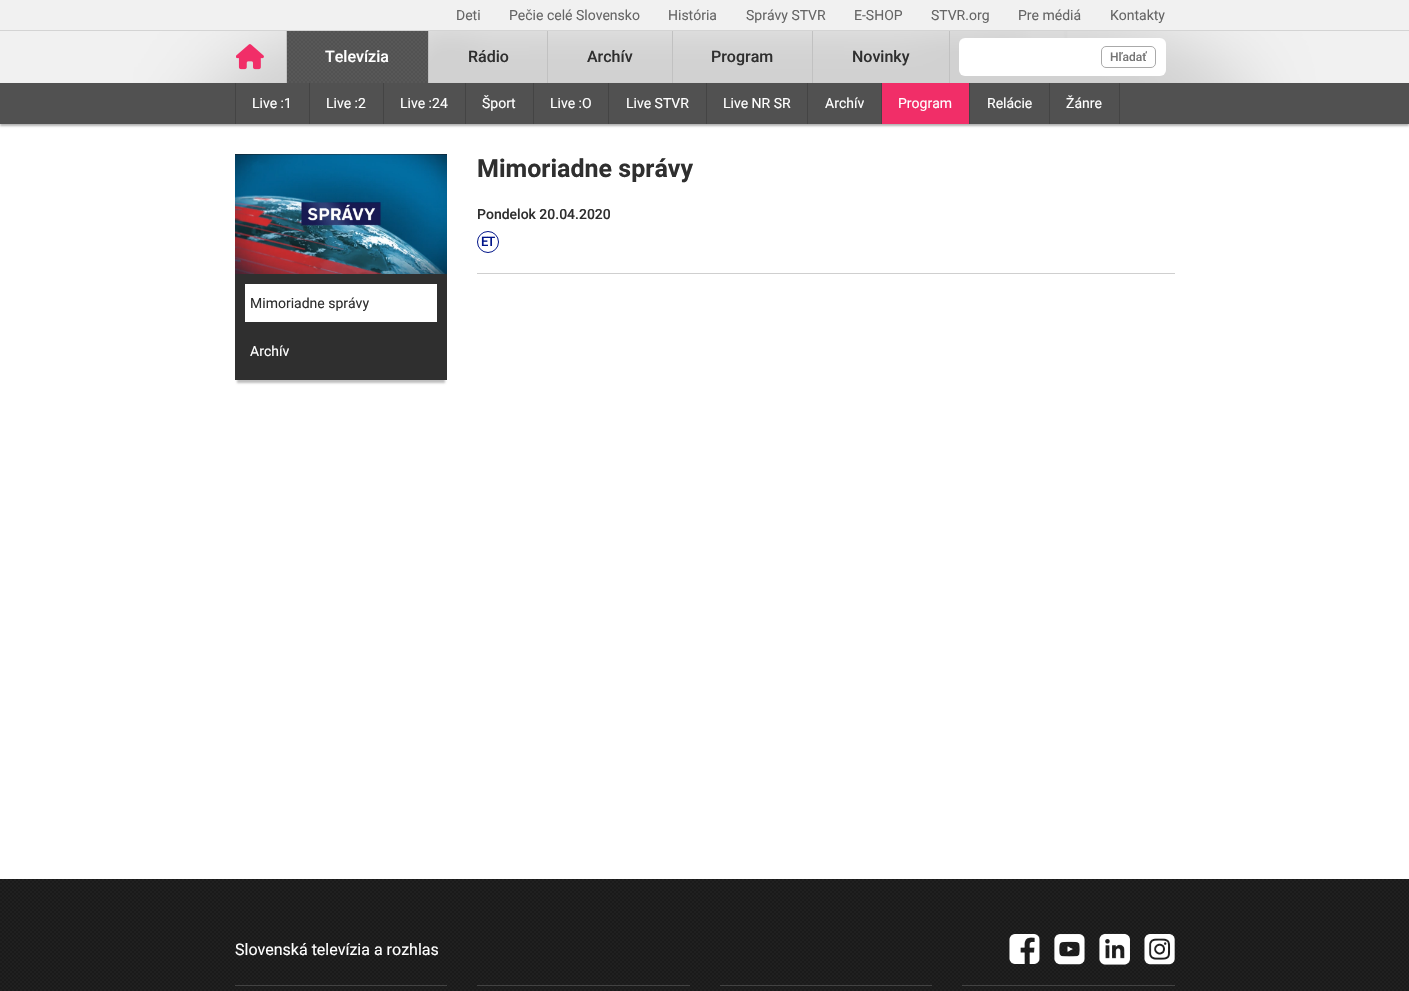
void draw(SkCanvas* canvas) {
	SkPaint paint;
	paint.setAntiAlias(true);
	auto spacedText = [&](const char* s, float x, float y, const SkFont& font, const SkPaint& ink, float letter, float word) {
		std::vector<SkGlyphID> glyphs(font.countText(s, strlen(s), SkTextEncoding::kUTF8));
		std::vector<float> xs(glyphs.size());
		font.textToGlyphs(s, strlen(s), SkTextEncoding::kUTF8, glyphs);
		font.getXPos(glyphs, xs, x);
		float extra = 0;
		for (size_t i = 0; i < glyphs.size(); i++) {
			xs[i] += extra;
			extra += letter + word * (glyphs[i] == font.unicharToGlyph(' '));
		}
		canvas->drawTextBlob(SkTextBlob::MakeFromPosHGlyphs(glyphs, xs, y, font), 0, 0, ink);
	};
	canvas->clear(0xffffffff);
	paint.setColor(0xfff1f1f1);
	canvas->drawRect(SkRect::MakeXYWH(0, 0, 1409, 30), paint);
	paint.setColor(0xffd4d4d4);
	canvas->drawRect(SkRect::MakeXYWH(0, 30, 1409, 1), paint);
	SkFont f1(fontMgr->matchFamilyStyle("Roboto", SkFontStyle::Normal()), 14);
	f1.setSubpixel(true);
	paint.setColor(0xff666666);
	canvas->drawString("Deti", 456, 20, f1, paint);
	canvas->drawString("Pečie celé Slovensko", 509, 20, f1, paint);
	canvas->drawString("História", 668, 20, f1, paint);
	canvas->drawString("Správy STVR", 746, 20, f1, paint);
	canvas->drawString("E-SHOP", 854, 20, f1, paint);
	canvas->drawString("STVR.org", 931, 20, f1, paint);
	canvas->drawString("Pre médiá", 1018, 20, f1, paint);
	canvas->drawString("Kontakty", 1110, 20, f1, paint);
	canvas->drawImageRect(SkImages::DeferredFromEncodedData(SkData::MakeFromFileName("img1.png")), SkRect::MakeXYWH(0, 31, 1409, 52), SkSamplingOptions());
	canvas->drawImageRect(SkImages::DeferredFromEncodedData(SkData::MakeFromFileName("img2.png")), SkRect::MakeXYWH(236, 44, 28, 26), SkSamplingOptions());
	paint.setColor(0xffc1c1c1);
	canvas->drawRect(SkRect::MakeXYWH(286, 31, 1, 52), paint);
	canvas->drawImageRect(SkImages::DeferredFromEncodedData(SkData::MakeFromFileName("img3.png")), SkRect::MakeXYWH(287, 31, 141, 52), SkSamplingOptions());
	canvas->drawRect(SkRect::MakeXYWH(428, 31, 1, 52), paint);
	SkFont f2(fontMgr->matchFamilyStyle("Roboto", SkFontStyle(500, SkFontStyle::kNormal_Width, SkFontStyle::kUpright_Slant)), 16);
	f2.setSubpixel(true);
	paint.setColor(0xffffffff);
	canvas->drawString("Televízia", 325, 62, f2, paint);
	paint.setColor(0xffc1c1c1);
	canvas->drawRect(SkRect::MakeXYWH(547, 31, 1, 52), paint);
	canvas->drawRect(SkRect::MakeXYWH(672, 31, 1, 52), paint);
	canvas->drawRect(SkRect::MakeXYWH(812, 31, 1, 52), paint);
	canvas->drawRect(SkRect::MakeXYWH(949, 31, 1, 52), paint);
	paint.setColor(0x4d000000);
	paint.setMaskFilter(SkMaskFilter::MakeBlur(kNormal_SkBlurStyle, 1));
	canvas->drawRect(SkRect::MakeXYWH(0, 85, 1409, 41), paint);
	paint.setMaskFilter(nullptr);
	paint.setColor(0xff515151);
	canvas->drawRect(SkRect::MakeXYWH(0, 83, 1409, 41), paint);
	paint.setColor(0xff444444);
	canvas->drawRect(SkRect::MakeXYWH(235, 83, 1, 41), paint);
	canvas->drawRect(SkRect::MakeXYWH(309, 83, 1, 41), paint);
	paint.setColor(0xffffffff);
	canvas->drawString("Live :1", 252, 108, f1, paint);
	paint.setColor(0xff444444);
	canvas->drawRect(SkRect::MakeXYWH(383, 83, 1, 41), paint);
	paint.setColor(0xffffffff);
	canvas->drawString("Live :2", 326, 108, f1, paint);
	paint.setColor(0xff444444);
	canvas->drawRect(SkRect::MakeXYWH(465, 83, 1, 41), paint);
	paint.setColor(0xffffffff);
	canvas->drawString("Live :24", 400, 108, f1, paint);
	paint.setColor(0xff444444);
	canvas->drawRect(SkRect::MakeXYWH(533, 83, 1, 41), paint);
	paint.setColor(0xffffffff);
	canvas->drawString("Šport", 482, 108, f1, paint);
	paint.setColor(0xff444444);
	canvas->drawRect(SkRect::MakeXYWH(608, 83, 1, 41), paint);
	paint.setColor(0xffffffff);
	canvas->drawString("Live :O", 550, 108, f1, paint);
	paint.setColor(0xff444444);
	canvas->drawRect(SkRect::MakeXYWH(706, 83, 1, 41), paint);
	paint.setColor(0xffffffff);
	canvas->drawString("Live STVR", 626, 108, f1, paint);
	paint.setColor(0xff444444);
	canvas->drawRect(SkRect::MakeXYWH(807, 83, 1, 41), paint);
	paint.setColor(0xffffffff);
	canvas->drawString("Live NR SR", 723, 108, f1, paint);
	paint.setColor(0xff444444);
	canvas->drawRect(SkRect::MakeXYWH(881, 83, 1, 41), paint);
	paint.setColor(0xffffffff);
	canvas->drawString("Archív", 825, 108, f1, paint);
	paint.setColor(0xfff12e68);
	canvas->drawRect(SkRect::MakeXYWH(882, 83, 87, 41), paint);
	paint.setColor(0xff444444);
	canvas->drawRect(SkRect::MakeXYWH(969, 83, 1, 41), paint);
	paint.setColor(0xffffffff);
	canvas->drawString("Program", 898, 108, f1, paint);
	paint.setColor(0xff444444);
	canvas->drawRect(SkRect::MakeXYWH(1049, 83, 1, 41), paint);
	paint.setColor(0xffffffff);
	canvas->drawString("Relácie", 987, 108, f1, paint);
	paint.setColor(0xff444444);
	canvas->drawRect(SkRect::MakeXYWH(1119, 83, 1, 41), paint);
	paint.setColor(0xffffffff);
	canvas->drawString("Žánre", 1066, 108, f1, paint);
	paint.setColor(0xff2f2f2f);
	canvas->drawString("Rádio", 468, 62, f2, paint);
	canvas->drawString("Archív", 587, 62, f2, paint);
	canvas->drawString("Program", 711, 62, f2, paint);
	canvas->drawString("Novinky", 852, 62, f2, paint);
	paint.setColor(0xffffffff);
	canvas->drawRoundRect(SkRect::MakeXYWH(959, 38, 207, 38), 6, 6, paint);
	paint.setStroke(true);
	paint.setStrokeWidth(1);
	paint.setColor(0xffaaaaaa);
	canvas->drawRoundRect(SkRect::MakeXYWH(1101.5, 46.5, 54, 21), 4.5, 4.5, paint);
	SkFont f3(fontMgr->matchFamilyStyle("Roboto", SkFontStyle(500, SkFontStyle::kNormal_Width, SkFontStyle::kUpright_Slant)), 12);
	f3.setSubpixel(true);
	paint.setStroke(false);
	paint.setColor(0xff757575);
	canvas->drawString("Hľadať", 1110, 61, f3, paint);
	paint.setColor(0xffcfcfcf);
	canvas->drawRect(SkRect::MakeXYWH(477, 273, 698, 1), paint);
	SkFont f4(fontMgr->matchFamilyStyle("Roboto", SkFontStyle::Bold()), 25);
	f4.setSubpixel(true);
	paint.setColor(0xff2f2f2f);
	canvas->drawString("Mimoriadne správy", 477, 177, f4, paint);
	SkFont f5(fontMgr->matchFamilyStyle("Roboto", SkFontStyle(500, SkFontStyle::kNormal_Width, SkFontStyle::kUpright_Slant)), 14);
	f5.setSubpixel(true);
	canvas->drawString("Pondelok 20.04.2020", 477, 219, f5, paint);
	paint.setStroke(true);
	paint.setColor(0xff001489);
	canvas->drawCircle(488, 242, 10.5, paint);
	SkFont f6(fontMgr->matchFamilyStyle("Roboto", SkFontStyle(500, SkFontStyle::kNormal_Width, SkFontStyle::kUpright_Slant)), 13);
	f6.setSubpixel(true);
	paint.setStroke(false);
	spacedText("ET", 481, 246, f6, paint, -1, 0);
	paint.setColor(0x40000000);
	paint.setMaskFilter(SkMaskFilter::MakeBlur(kNormal_SkBlurStyle, 1));
	canvas->drawRect(SkRect::MakeXYWH(237, 161, 208, 222), paint);
	paint.setMaskFilter(nullptr);
	paint.setColor(0xff2f2f2f);
	canvas->drawRect(SkRect::MakeXYWH(235, 274, 212, 106), paint);
	canvas->drawImageRect(SkImages::DeferredFromEncodedData(SkData::MakeFromFileName("img4.png")), SkRect::MakeXYWH(235, 154, 212, 120), SkSamplingOptions());
	paint.setColor(0xffffffff);
	canvas->drawRect(SkRect::MakeXYWH(245, 284, 192, 38), paint);
	paint.setColor(0xff2f2f2f);
	canvas->drawString("Mimoriadne správy", 250, 308, f1, paint);
	paint.setColor(0xffffffff);
	canvas->drawString("Archív", 250, 356, f1, paint);
	canvas->drawImageRect(SkImages::DeferredFromEncodedData(SkData::MakeFromFileName("img5.png")), SkRect::MakeXYWH(0, 879, 1409, 112), SkSamplingOptions());
	SkFont f7(fontMgr->matchFamilyStyle("Roboto", SkFontStyle::Normal()), 16);
	f7.setSubpixel(true);
	canvas->drawString("Slovenská televízia a rozhlas", 235, 955, f7, paint);
	canvas->drawImageRect(SkImages::DeferredFromEncodedData(SkData::MakeFromFileName("img6.png")), SkRect::MakeXYWH(1009, 934, 31, 30), SkSamplingOptions());
	canvas->drawImageRect(SkImages::DeferredFromEncodedData(SkData::MakeFromFileName("img7.png")), SkRect::MakeXYWH(1054, 934, 31, 31), SkSamplingOptions());
	canvas->drawImageRect(SkImages::DeferredFromEncodedData(SkData::MakeFromFileName("img8.png")), SkRect::MakeXYWH(1099, 933, 31, 32), SkSamplingOptions());
	canvas->drawImageRect(SkImages::DeferredFromEncodedData(SkData::MakeFromFileName("img9.png")), SkRect::MakeXYWH(1144, 934, 31, 31), SkSamplingOptions());
	paint.setColor(0xff424242);
	canvas->drawRect(SkRect::MakeXYWH(235, 985, 212, 1), paint);
	canvas->drawRect(SkRect::MakeXYWH(477, 985, 213, 1), paint);
	canvas->drawRect(SkRect::MakeXYWH(720, 985, 212, 1), paint);
	canvas->drawRect(SkRect::MakeXYWH(962, 985, 213, 1), paint);
}
